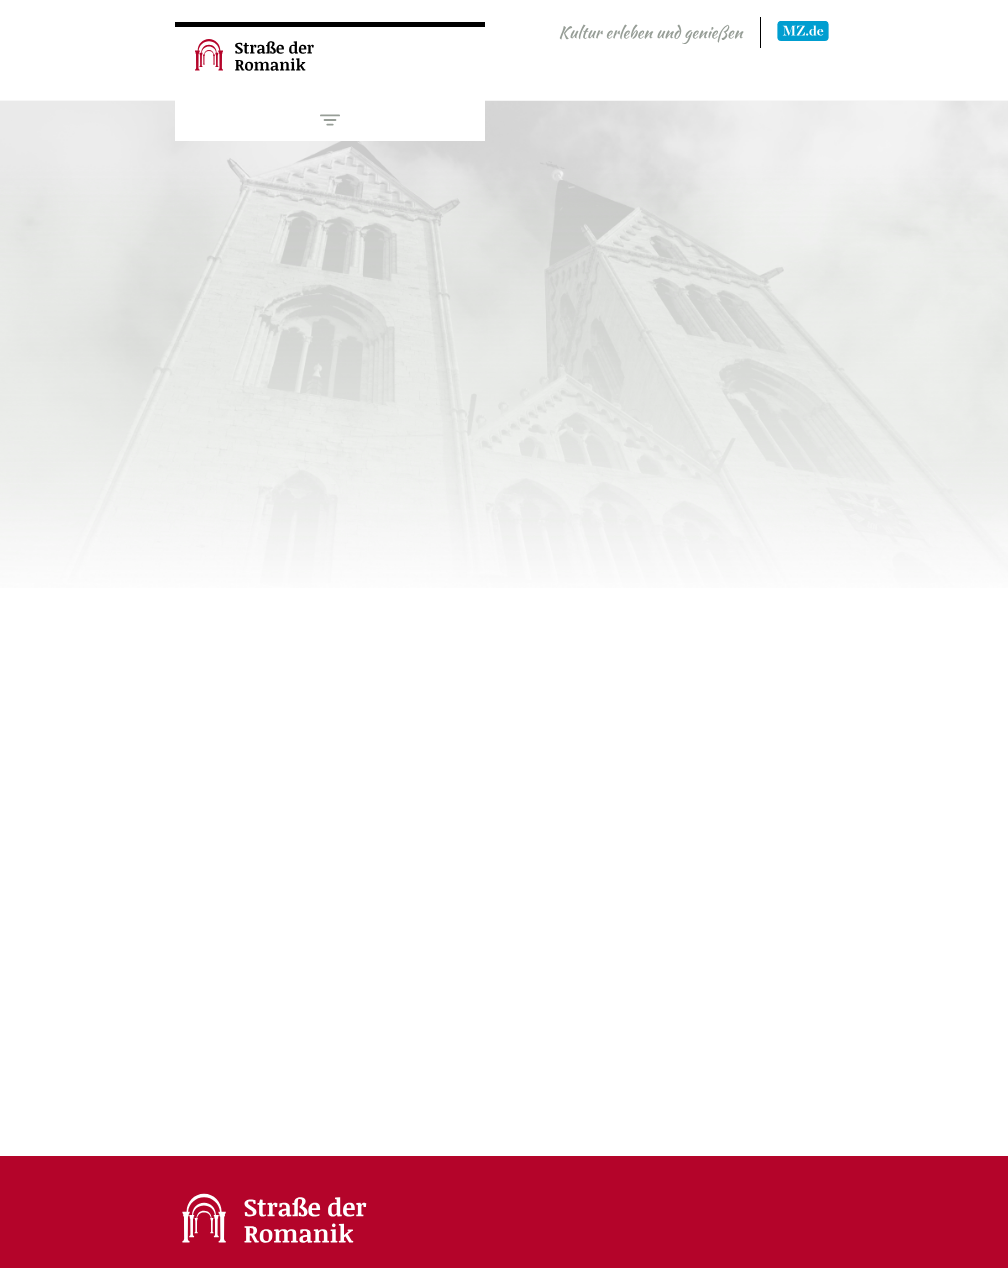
void draw(SkCanvas* canvas) {
	SkPaint paint;
	paint.setAntiAlias(true);
	canvas->clear(0xffffffff);
	canvas->drawImageRect(SkImages::DeferredFromEncodedData(SkData::MakeFromFileName("img5.png")), SkRect::MakeXYWH(0, 100, 1008, 488), SkSamplingOptions());
	paint.setColor(0xffffffff);
	canvas->drawRect(SkRect::MakeXYWH(175, 100, 310, 41), paint);
	paint.setColor(0xff000000);
	canvas->drawRect(SkRect::MakeXYWH(175, 22, 310, 5), paint);
	canvas->drawImageRect(SkImages::DeferredFromEncodedData(SkData::MakeFromFileName("img1.png")), SkRect::MakeXYWH(195, 39, 119, 32), SkSamplingOptions());
	canvas->drawImageRect(SkImages::DeferredFromEncodedData(SkData::MakeFromFileName("img2.png")), SkRect::MakeXYWH(320, 114, 20, 12), SkSamplingOptions());
	canvas->drawImageRect(SkImages::DeferredFromEncodedData(SkData::MakeFromFileName("img3.png")), SkRect::MakeXYWH(559, 24, 185, 20), SkSamplingOptions());
	canvas->drawRect(SkRect::MakeXYWH(760, 17, 1, 31), paint);
	canvas->drawImageRect(SkImages::DeferredFromEncodedData(SkData::MakeFromFileName("img4.png")), SkRect::MakeXYWH(777, 21, 52, 20), SkSamplingOptions());
	paint.setColor(0xffb4042a);
	canvas->drawRect(SkRect::MakeXYWH(0, 1156, 1008, 112), paint);
	canvas->drawImageRect(SkImages::DeferredFromEncodedData(SkData::MakeFromFileName("img6.png")), SkRect::MakeXYWH(182, 1193, 185, 50), SkSamplingOptions());
}
